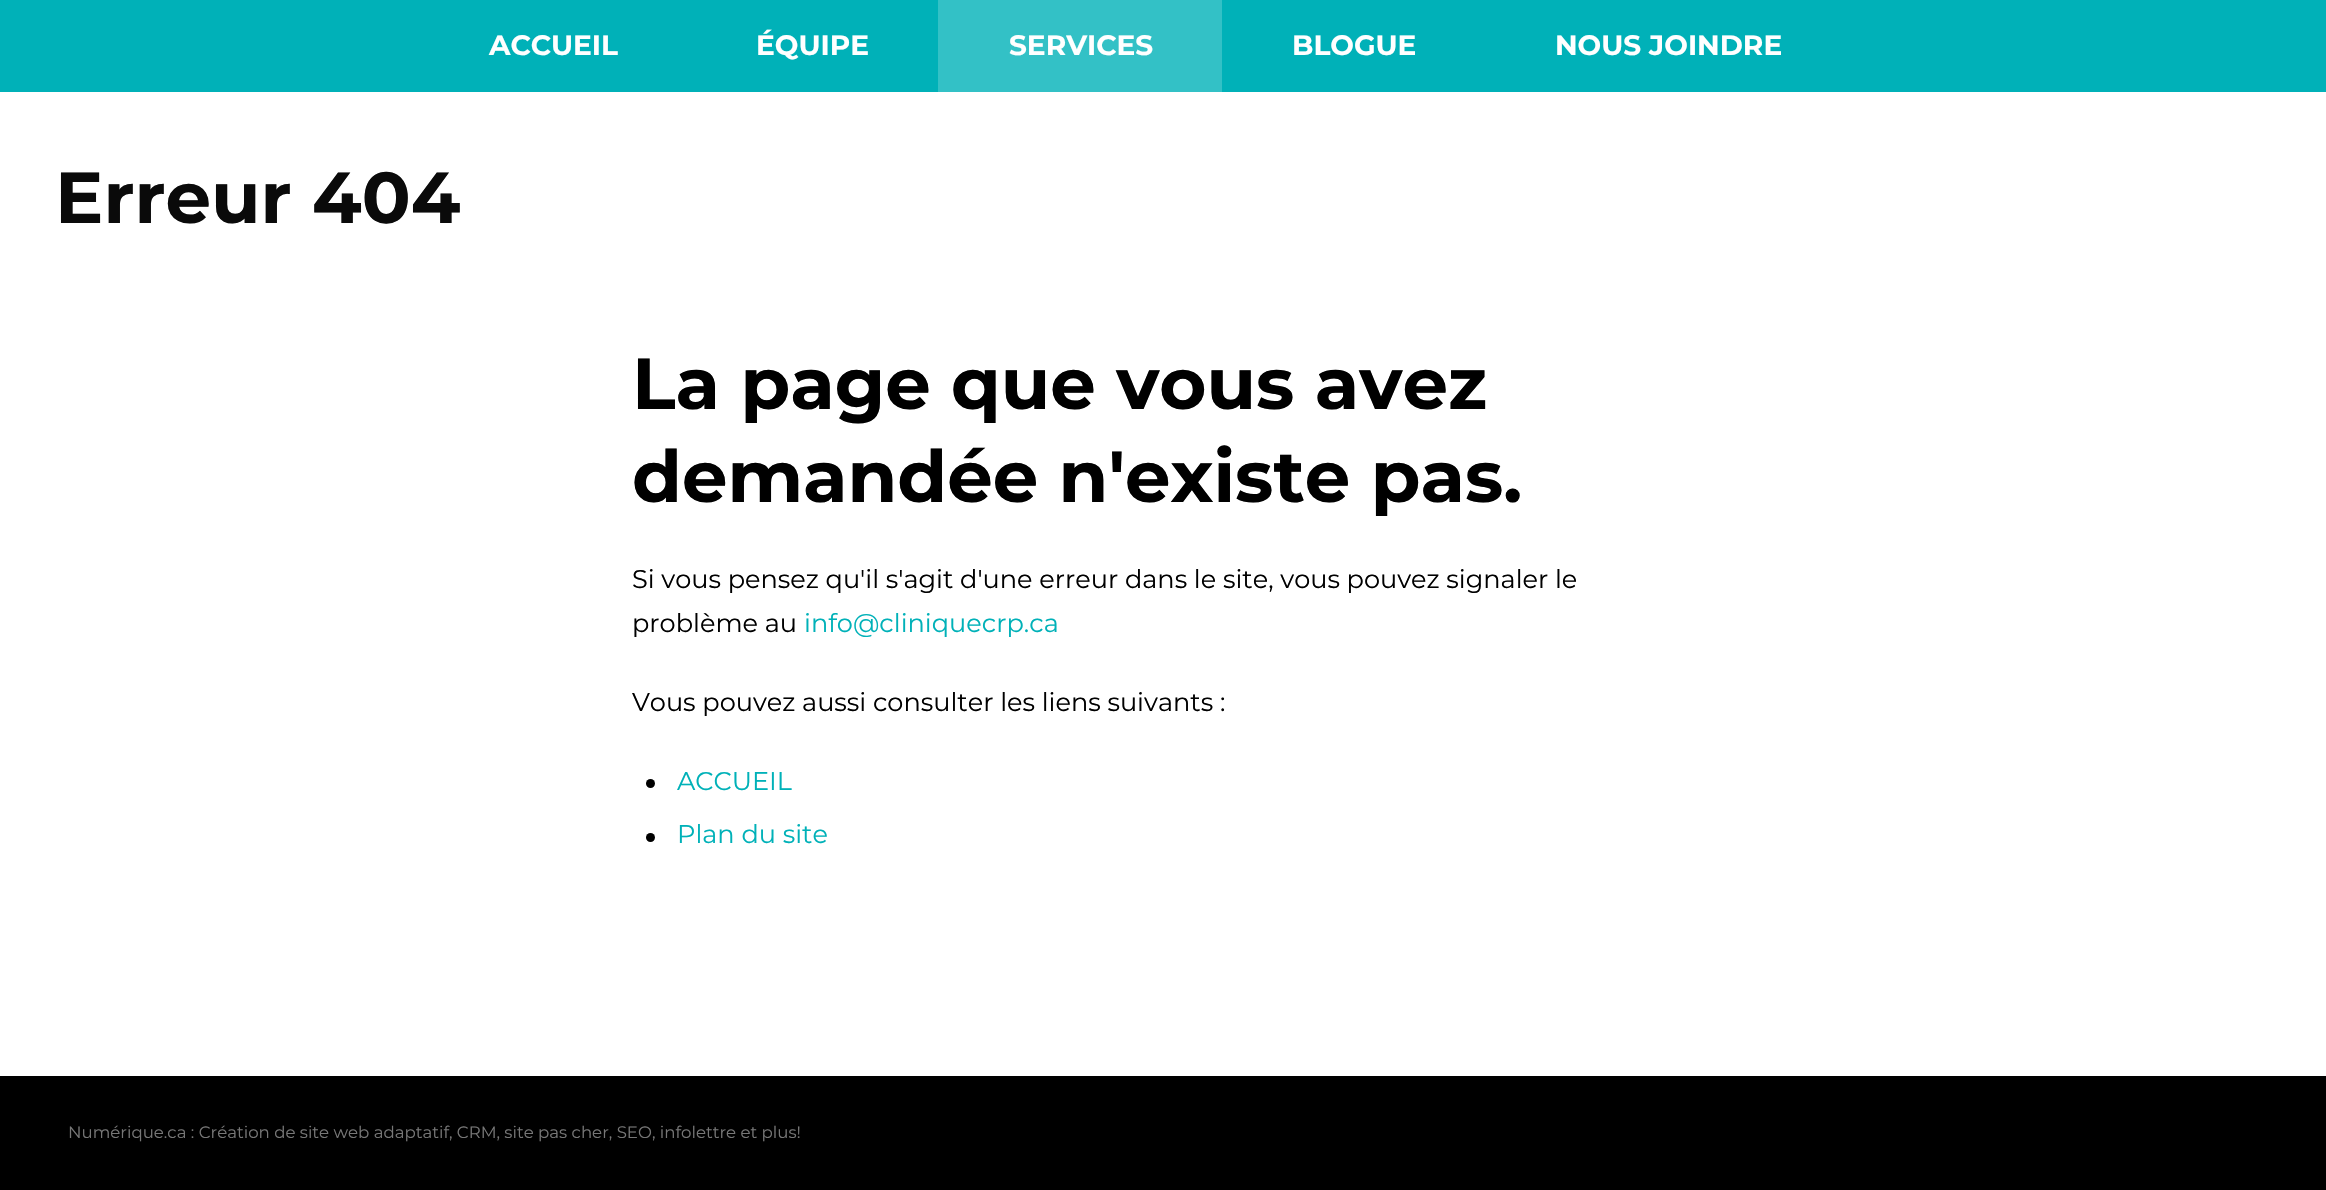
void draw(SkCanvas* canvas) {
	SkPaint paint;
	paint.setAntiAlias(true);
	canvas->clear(0xffffffff);
	paint.setColor(0xff00b1b8);
	canvas->drawRect(SkRect::MakeXYWH(0, 0, 2326, 92), paint);
	SkFont f1(fontMgr->matchFamilyStyle("Montserrat", SkFontStyle::Bold()), 28);
	f1.setSubpixel(true);
	paint.setColor(0xffffffff);
	canvas->drawString("ACCUEIL", 489, 55, f1, paint);
	canvas->drawString("ÉQUIPE", 756, 55, f1, paint);
	paint.setColor(0xff33c1c6);
	canvas->drawRect(SkRect::MakeXYWH(938, 0, 284, 92), paint);
	paint.setColor(0xffffffff);
	canvas->drawString("SERVICES", 1009, 55, f1, paint);
	canvas->drawString("BLOGUE", 1292, 55, f1, paint);
	canvas->drawString("NOUS JOINDRE", 1555, 55, f1, paint);
	SkFont f2(fontMgr->matchFamilyStyle("Montserrat", SkFontStyle::Bold()), 72.1);
	f2.setSubpixel(true);
	paint.setColor(0xff0a0a0a);
	canvas->drawString("Erreur 404", 55, 223, f2, paint);
	paint.setColor(0xff000000);
	canvas->drawString("La page que vous avez", 632, 409, f2, paint);
	canvas->drawString("demandée n'existe pas.", 632, 502, f2, paint);
	SkFont f3(fontMgr->matchFamilyStyle("Montserrat", SkFontStyle::Normal()), 25.6);
	f3.setSubpixel(true);
	canvas->drawString("Si vous pensez qu'il s'agit d'une erreur dans le site, vous pouvez signaler le", 632, 588, f3, paint);
	canvas->drawString("problème au", 632, 632, f3, paint);
	paint.setColor(0xff00b1b8);
	canvas->drawString("info@cliniquecrp.ca", 804, 632, f3, paint);
	paint.setColor(0xff000000);
	canvas->drawString("Vous pouvez aussi consulter les liens suivants :", 632, 711, f3, paint);
	canvas->drawCircle(650.5, 783.5, 4.5, paint);
	paint.setColor(0xff00b1b8);
	canvas->drawString("ACCUEIL", 677, 790, f3, paint);
	paint.setColor(0xff000000);
	canvas->drawCircle(650.5, 837.5, 4.5, paint);
	paint.setColor(0xff00b1b8);
	canvas->drawString("Plan du site", 677, 843, f3, paint);
	paint.setColor(0xff000000);
	canvas->drawRect(SkRect::MakeXYWH(0, 1076, 2326, 114), paint);
	SkFont f4(fontMgr->matchFamilyStyle("Montserrat", SkFontStyle::Normal()), 16.6);
	f4.setSubpixel(true);
	paint.setColor(0xff777777);
	canvas->drawString("Numérique.ca : Création de site web adaptatif", 68, 1138, f4, paint);
	canvas->drawString(", CRM, site pas cher, SEO, infolettre et plus!", 449, 1138, f4, paint);
}
